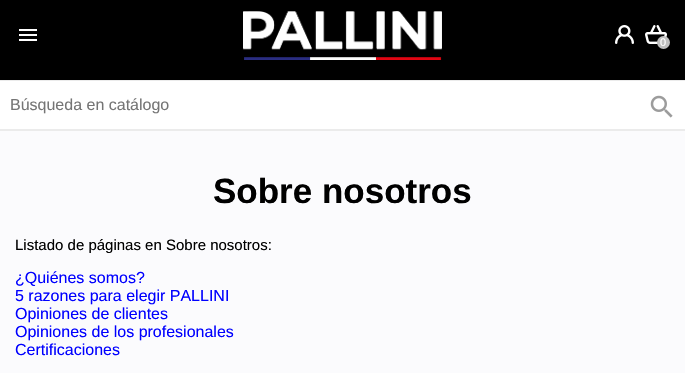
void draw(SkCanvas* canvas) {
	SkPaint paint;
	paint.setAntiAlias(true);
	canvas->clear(0xfffbfbfd);
	paint.setColor(0xff000000);
	canvas->drawRect(SkRect::MakeXYWH(0, 0, 685, 80), paint);
	canvas->drawImageRect(SkImages::DeferredFromEncodedData(SkData::MakeFromFileName("img1.png")), SkRect::MakeXYWH(19, 29, 18, 12), SkSamplingOptions());
	canvas->drawImageRect(SkImages::DeferredFromEncodedData(SkData::MakeFromFileName("img2.png")), SkRect::MakeXYWH(243, 11, 199, 49), SkSamplingOptions());
	canvas->drawImageRect(SkImages::DeferredFromEncodedData(SkData::MakeFromFileName("img3.png")), SkRect::MakeXYWH(615, 25, 19, 19), SkSamplingOptions());
	canvas->drawImageRect(SkImages::DeferredFromEncodedData(SkData::MakeFromFileName("img4.png")), SkRect::MakeXYWH(645, 25, 22, 19), SkSamplingOptions());
	paint.setColor(0xffc0c0c0);
	canvas->drawCircle(663.5, 42.5, 6.5, paint);
	SkFont f1(fontMgr->matchFamilyStyle("Arimo", SkFontStyle::Normal()), 11);
	f1.setSubpixel(true);
	paint.setColor(0xffffffff);
	canvas->drawString("0", 660, 46, f1, paint);
	paint.setColor(0xffebebeb);
	canvas->drawRect(SkRect::MakeXYWH(0, 80, 685, 51), paint);
	paint.setColor(0xffffffff);
	canvas->drawRect(SkRect::MakeXYWH(0, 81, 685, 48), paint);
	SkFont f2(fontMgr->matchFamilyStyle("Arimo", SkFontStyle::Normal()), 16);
	f2.setSubpixel(true);
	paint.setColor(0xff757575);
	canvas->drawString("Búsqueda en catálogo", 10, 110, f2, paint);
	canvas->drawImageRect(SkImages::DeferredFromEncodedData(SkData::MakeFromFileName("img5.png")), SkRect::MakeXYWH(650, 95, 23, 23), SkSamplingOptions());
	SkFont f3(fontMgr->matchFamilyStyle("Arimo", SkFontStyle::Bold()), 35);
	f3.setSubpixel(true);
	paint.setColor(0xff000000);
	canvas->drawString("Sobre nosotros", 213, 203, f3, paint);
	SkFont f4(fontMgr->matchFamilyStyle("Arimo", SkFontStyle::Normal()), 15);
	f4.setSubpixel(true);
	canvas->drawString("Listado de páginas en Sobre nosotros:", 15, 250, f4, paint);
	paint.setColor(0xff0000ff);
	canvas->drawString("¿Quiénes somos?", 15, 283, f2, paint);
	canvas->drawString("5 razones para elegir PALLINI", 15, 301, f2, paint);
	canvas->drawString("Opiniones de clientes", 15, 319, f2, paint);
	canvas->drawString("Opiniones de los profesionales", 15, 337, f2, paint);
	canvas->drawString("Certificaciones", 15, 355, f2, paint);
}
